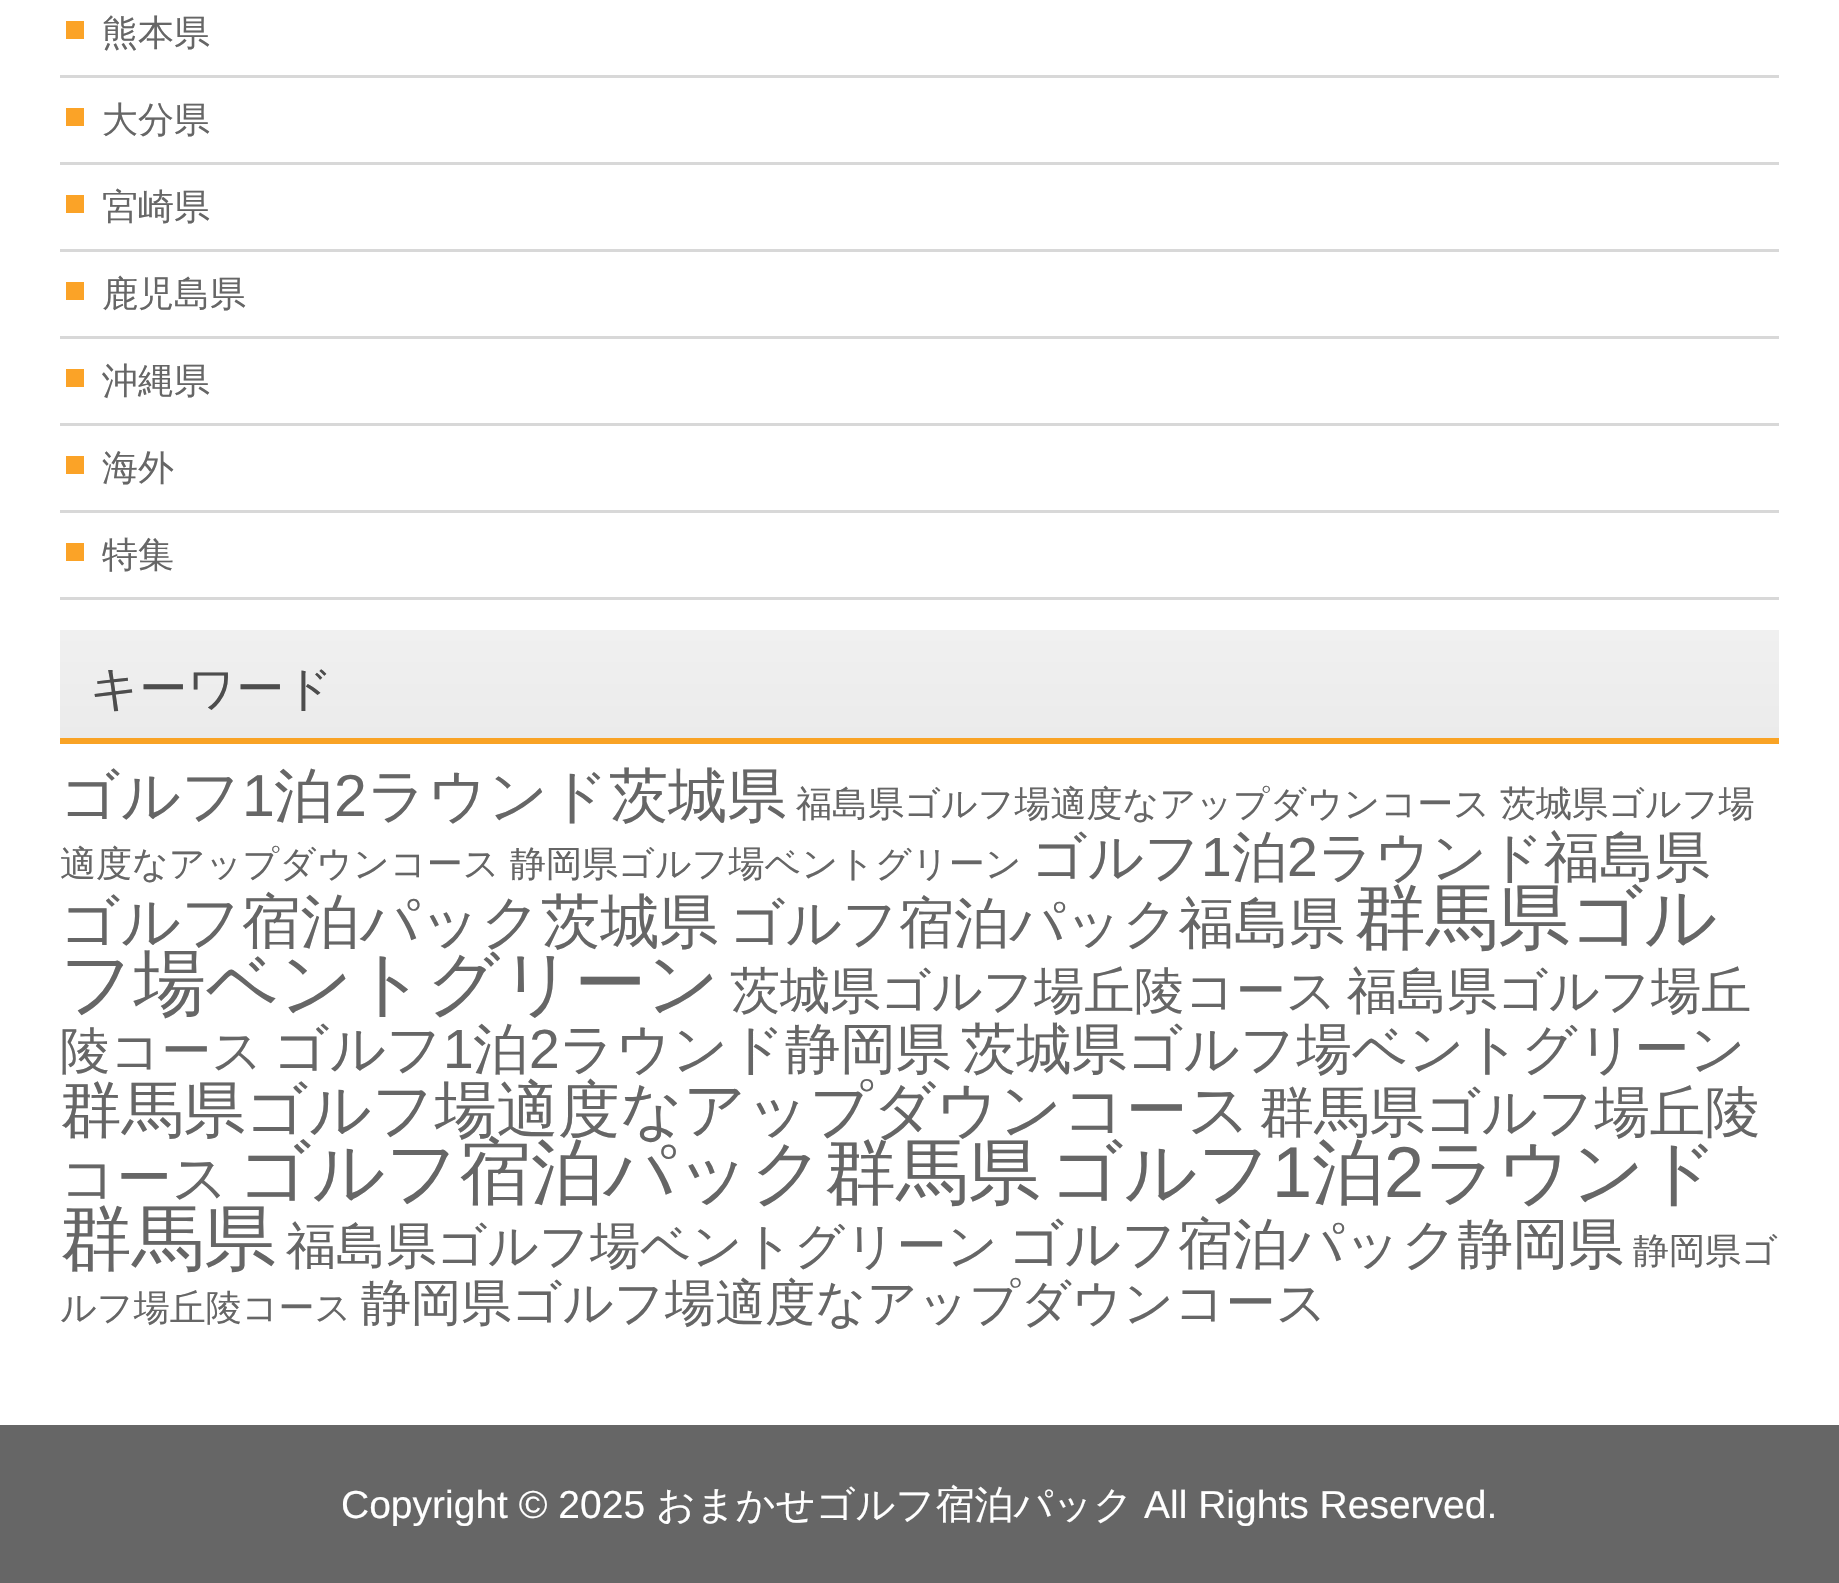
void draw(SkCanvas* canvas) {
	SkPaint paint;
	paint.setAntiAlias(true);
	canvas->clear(0xffffffff);
	paint.setColor(0xfffba327);
	canvas->drawRect(SkRect::MakeXYWH(66, 21, 18, 18), paint);
	paint.setColor(0xffd8d8d8);
	canvas->drawRect(SkRect::MakeXYWH(60, 75, 1719, 3), paint);
	SkFont f1(fontMgr->matchFamilyStyle("WenQuanYi Zen Hei", SkFontStyle(500, SkFontStyle::kNormal_Width, SkFontStyle::kUpright_Slant)), 36);
	f1.setSubpixel(true);
	paint.setColor(0xff666666);
	canvas->drawString("熊本県", 102, 45, f1, paint);
	paint.setColor(0xfffba327);
	canvas->drawRect(SkRect::MakeXYWH(66, 108, 18, 18), paint);
	paint.setColor(0xffd8d8d8);
	canvas->drawRect(SkRect::MakeXYWH(60, 162, 1719, 3), paint);
	paint.setColor(0xff666666);
	canvas->drawString("大分県", 102, 132, f1, paint);
	paint.setColor(0xfffba327);
	canvas->drawRect(SkRect::MakeXYWH(66, 195, 18, 18), paint);
	paint.setColor(0xffd8d8d8);
	canvas->drawRect(SkRect::MakeXYWH(60, 249, 1719, 3), paint);
	paint.setColor(0xff666666);
	canvas->drawString("宮崎県", 102, 219, f1, paint);
	paint.setColor(0xfffba327);
	canvas->drawRect(SkRect::MakeXYWH(66, 282, 18, 18), paint);
	paint.setColor(0xffd8d8d8);
	canvas->drawRect(SkRect::MakeXYWH(60, 336, 1719, 3), paint);
	paint.setColor(0xff666666);
	canvas->drawString("鹿児島県", 102, 306, f1, paint);
	paint.setColor(0xfffba327);
	canvas->drawRect(SkRect::MakeXYWH(66, 369, 18, 18), paint);
	paint.setColor(0xffd8d8d8);
	canvas->drawRect(SkRect::MakeXYWH(60, 423, 1719, 3), paint);
	paint.setColor(0xff666666);
	canvas->drawString("沖縄県", 102, 393, f1, paint);
	paint.setColor(0xfffba327);
	canvas->drawRect(SkRect::MakeXYWH(66, 456, 18, 18), paint);
	paint.setColor(0xffd8d8d8);
	canvas->drawRect(SkRect::MakeXYWH(60, 510, 1719, 3), paint);
	paint.setColor(0xff666666);
	canvas->drawString("海外", 102, 480, f1, paint);
	paint.setColor(0xfffba327);
	canvas->drawRect(SkRect::MakeXYWH(66, 543, 18, 18), paint);
	paint.setColor(0xffd8d8d8);
	canvas->drawRect(SkRect::MakeXYWH(60, 597, 1719, 3), paint);
	paint.setColor(0xff666666);
	canvas->drawString("特集", 102, 567, f1, paint);
	paint.setColor(0xfff9a325);
	canvas->drawRect(SkRect::MakeXYWH(60, 738, 1719, 6), paint);
	{
		const SkColor colors[] = {0xffebebeb, 0xfff0f0f0};
		const float stops[] = {0, 1};
		const SkPoint ends[] = {{920, 738}, {920, 630}};
		paint.setShader(SkGradientShader::MakeLinear(ends, colors, stops, 2, SkTileMode::kClamp));
		paint.setAlpha(255);
	}
	canvas->drawRect(SkRect::MakeXYWH(60, 630, 1719, 108), paint);
	SkFont f2(fontMgr->matchFamilyStyle("WenQuanYi Zen Hei", SkFontStyle(500, SkFontStyle::kNormal_Width, SkFontStyle::kUpright_Slant)), 48);
	f2.setSubpixel(true);
	paint.setShader(nullptr);
	paint.setColor(0xff4d4d4d);
	canvas->drawString("キーワード", 90, 705, f2, paint);
	SkFont f3(fontMgr->matchFamilyStyle("WenQuanYi Zen Hei", SkFontStyle(500, SkFontStyle::kNormal_Width, SkFontStyle::kUpright_Slant)), 59.1);
	f3.setSubpixel(true);
	paint.setColor(0xff666666);
	canvas->drawString("ゴルフ", 60, 816, f3, paint);
	SkFont f4(fontMgr->matchFamilyStyle("Liberation Sans", SkFontStyle::Normal()), 59.1);
	f4.setSubpixel(true);
	canvas->drawString("1", 242, 816, f4, paint);
	canvas->drawString("泊", 274, 816, f3, paint);
	canvas->drawString("2", 334, 816, f4, paint);
	canvas->drawString("ラウンド茨城県", 367, 816, f3, paint);
	canvas->drawString("福島県ゴルフ場適度なアップダウンコース", 796, 816, f1, paint);
	canvas->drawString("茨城県ゴルフ場", 1500, 816, f1, paint);
	canvas->drawString("適度なアップダウンコース", 60, 876, f1, paint);
	canvas->drawString("静岡県ゴルフ場ベントグリーン", 510, 876, f1, paint);
	SkFont f5(fontMgr->matchFamilyStyle("WenQuanYi Zen Hei", SkFontStyle(500, SkFontStyle::kNormal_Width, SkFontStyle::kUpright_Slant)), 55.25);
	f5.setSubpixel(true);
	canvas->drawString("ゴルフ", 1031, 876, f5, paint);
	SkFont f6(fontMgr->matchFamilyStyle("Liberation Sans", SkFontStyle::Normal()), 55.25);
	f6.setSubpixel(true);
	canvas->drawString("1", 1201, 876, f6, paint);
	canvas->drawString("泊", 1232, 876, f5, paint);
	canvas->drawString("2", 1287, 876, f6, paint);
	canvas->drawString("ラウンド福島県", 1318, 876, f5, paint);
	canvas->drawString("ゴルフ宿泊パック茨城県", 60, 942, f3, paint);
	canvas->drawString("ゴルフ宿泊パック福島県", 729, 942, f5, paint);
	SkFont f7(fontMgr->matchFamilyStyle("WenQuanYi Zen Hei", SkFontStyle(500, SkFontStyle::kNormal_Width, SkFontStyle::kUpright_Slant)), 72);
	f7.setSubpixel(true);
	canvas->drawString("群馬県ゴル", 1354, 942, f7, paint);
	canvas->drawString("フ場ベントグリーン", 60, 1008, f7, paint);
	SkFont f8(fontMgr->matchFamilyStyle("WenQuanYi Zen Hei", SkFontStyle(500, SkFontStyle::kNormal_Width, SkFontStyle::kUpright_Slant)), 50.1);
	f8.setSubpixel(true);
	canvas->drawString("茨城県ゴルフ場丘陵コース", 730, 1008, f8, paint);
	canvas->drawString("福島県ゴルフ場丘", 1347, 1008, f8, paint);
	canvas->drawString("陵コース", 60, 1068, f8, paint);
	canvas->drawString("ゴルフ", 273, 1068, f5, paint);
	canvas->drawString("1", 443, 1068, f6, paint);
	canvas->drawString("泊", 473, 1068, f5, paint);
	canvas->drawString("2", 529, 1068, f6, paint);
	canvas->drawString("ラウンド静岡県", 559, 1068, f5, paint);
	canvas->drawString("茨城県ゴルフ場ベントグリーン", 961, 1068, f5, paint);
	SkFont f9(fontMgr->matchFamilyStyle("WenQuanYi Zen Hei", SkFontStyle(500, SkFontStyle::kNormal_Width, SkFontStyle::kUpright_Slant)), 61.75);
	f9.setSubpixel(true);
	canvas->drawString("群馬県ゴルフ場適度なアップダウンコース", 60, 1131, f9, paint);
	canvas->drawString("群馬県ゴルフ場丘陵", 1259, 1131, f5, paint);
	canvas->drawString("コース", 60, 1197, f5, paint);
	canvas->drawString("ゴルフ宿泊パック群馬県", 238, 1197, f7, paint);
	canvas->drawString("ゴルフ", 1050, 1197, f7, paint);
	SkFont f10(fontMgr->matchFamilyStyle("Liberation Sans", SkFontStyle::Normal()), 72);
	f10.setSubpixel(true);
	canvas->drawString("1", 1272, 1197, f10, paint);
	canvas->drawString("泊", 1312, 1197, f7, paint);
	canvas->drawString("2", 1384, 1197, f10, paint);
	canvas->drawString("ラウンド", 1424, 1197, f7, paint);
	canvas->drawString("群馬県", 60, 1263, f7, paint);
	canvas->drawString("福島県ゴルフ場ベントグリーン", 286, 1263, f8, paint);
	canvas->drawString("ゴルフ宿泊パック静岡県", 1008, 1263, f5, paint);
	canvas->drawString("静岡県ゴ", 1633, 1263, f1, paint);
	canvas->drawString("ルフ場丘陵コース", 60, 1320, f1, paint);
	canvas->drawString("静岡県ゴルフ場適度なアップダウンコース", 361, 1320, f8, paint);
	canvas->drawRect(SkRect::MakeXYWH(0, 1425, 1839, 158), paint);
	SkFont f11(fontMgr->matchFamilyStyle("Liberation Sans", SkFontStyle::Normal()), 39);
	f11.setSubpixel(true);
	paint.setColor(0xffffffff);
	canvas->drawString("Copyright © 2025", 341, 1518, f11, paint);
	SkFont f12(fontMgr->matchFamilyStyle("WenQuanYi Zen Hei", SkFontStyle(500, SkFontStyle::kNormal_Width, SkFontStyle::kUpright_Slant)), 39);
	f12.setSubpixel(true);
	canvas->drawString("おまかせゴルフ宿泊パック", 656, 1518, f12, paint);
	canvas->drawString("All Rights Reserved.", 1144, 1518, f11, paint);
}
